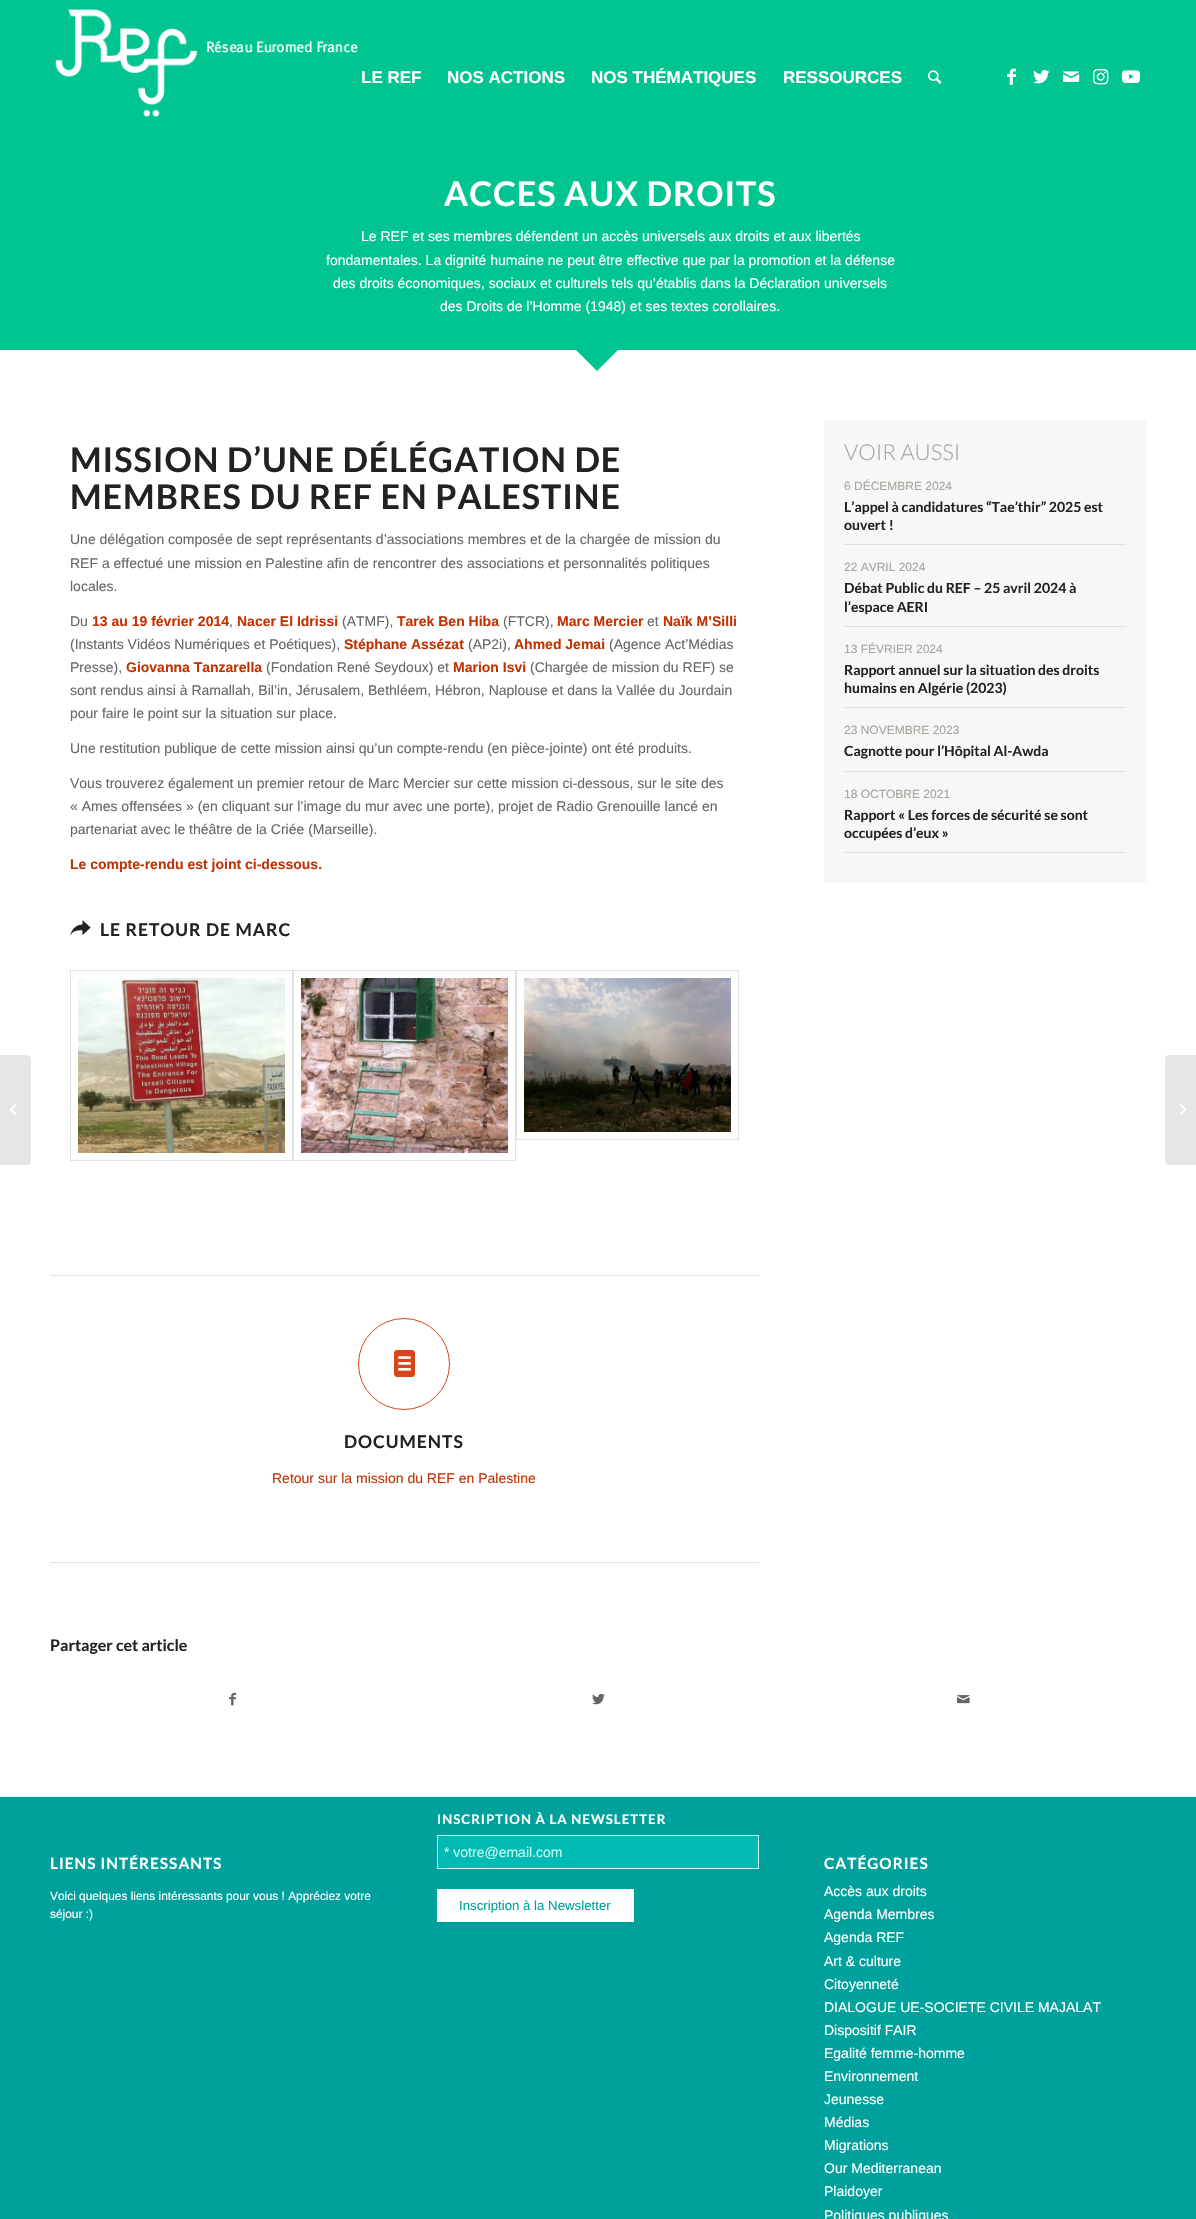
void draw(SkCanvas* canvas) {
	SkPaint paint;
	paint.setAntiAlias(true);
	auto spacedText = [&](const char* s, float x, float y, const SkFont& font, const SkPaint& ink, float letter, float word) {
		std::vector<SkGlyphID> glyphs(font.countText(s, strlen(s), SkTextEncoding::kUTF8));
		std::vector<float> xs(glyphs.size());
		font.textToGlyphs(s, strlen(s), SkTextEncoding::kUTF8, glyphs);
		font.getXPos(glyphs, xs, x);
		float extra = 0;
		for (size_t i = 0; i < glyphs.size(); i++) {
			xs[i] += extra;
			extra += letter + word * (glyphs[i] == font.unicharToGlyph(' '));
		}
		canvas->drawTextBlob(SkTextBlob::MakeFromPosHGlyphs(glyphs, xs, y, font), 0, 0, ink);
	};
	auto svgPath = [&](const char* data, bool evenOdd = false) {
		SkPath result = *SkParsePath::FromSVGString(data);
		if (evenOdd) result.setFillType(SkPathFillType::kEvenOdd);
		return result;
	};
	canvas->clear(0xff00c590);
	canvas->drawImageRect(SkImages::DeferredFromEncodedData(SkData::MakeFromFileName("img1.png")), SkRect::MakeXYWH(55, 9, 303, 108), SkSamplingOptions());
	SkFont f1(fontMgr->matchFamilyStyle("Liberation Sans", SkFontStyle::Bold()), 17);
	f1.setSubpixel(true);
	paint.setColor(0xffffffff);
	canvas->drawString("LE REF", 361, 83, f1, paint);
	canvas->drawString("NOS ACTIONS", 447, 83, f1, paint);
	canvas->drawString("NOS THÉMATIQUES", 591, 83, f1, paint);
	canvas->drawString("RESSOURCES", 783, 83, f1, paint);
	canvas->drawImageRect(SkImages::DeferredFromEncodedData(SkData::MakeFromFileName("img2.png")), SkRect::MakeXYWH(928, 70, 14, 14), SkSamplingOptions());
	canvas->drawImageRect(SkImages::DeferredFromEncodedData(SkData::MakeFromFileName("img3.png")), SkRect::MakeXYWH(1007, 68, 9, 17), SkSamplingOptions());
	canvas->drawImageRect(SkImages::DeferredFromEncodedData(SkData::MakeFromFileName("img4.png")), SkRect::MakeXYWH(1033, 70, 17, 14), SkSamplingOptions());
	canvas->drawImageRect(SkImages::DeferredFromEncodedData(SkData::MakeFromFileName("img5.png")), SkRect::MakeXYWH(1063, 71, 17, 11), SkSamplingOptions());
	canvas->drawImageRect(SkImages::DeferredFromEncodedData(SkData::MakeFromFileName("img6.png")), SkRect::MakeXYWH(1093, 69, 16, 16), SkSamplingOptions());
	canvas->drawImageRect(SkImages::DeferredFromEncodedData(SkData::MakeFromFileName("img7.png")), SkRect::MakeXYWH(1122, 70, 18, 13), SkSamplingOptions());
	canvas->drawRect(SkRect::MakeXYWH(0, 350, 1196, 1446), paint);
	paint.setColor(0xffe6e6e6);
	canvas->drawPath(svgPath("M0 1055H27C29 1055 31 1057 31 1059V1161C31 1163 29 1165 27 1165H0Z"), paint);
	canvas->drawImageRect(SkImages::DeferredFromEncodedData(SkData::MakeFromFileName("img8.png")), SkRect::MakeXYWH(10, 1104, 7, 11), SkSamplingOptions());
	SkFont f2(fontMgr->matchFamilyStyle("Lato", SkFontStyle::Bold()), 34);
	f2.setSubpixel(true);
	paint.setColor(0xffffffff);
	spacedText("ACCES AUX DROITS", 444, 206, f2, paint, 1, 0);
	SkFont f3(fontMgr->matchFamilyStyle("Liberation Sans", SkFontStyle::Normal()), 14);
	f3.setSubpixel(true);
	canvas->drawString("Le REF et ses membres défendent un accès universels aux droits et aux libertés", 361, 241, f3, paint);
	canvas->drawString("fondamentales. La dignité humaine ne peut être effective que par la promotion et la défense", 326, 265, f3, paint);
	canvas->drawString("des droits économiques, sociaux et culturels tels qu’établis dans la Déclaration universels", 333, 288, f3, paint);
	canvas->drawString("des Droits de l’Homme (1948) et ses textes corollaires.", 440, 311, f3, paint);
	canvas->save();
	canvas->clipRect(SkRect::MakeXYWH(572, 350, 50, 25));
	paint.setColor(0xff00c590);
	canvas->drawPath(svgPath("M597 300L632 336L597 371L562 336Z"), paint);
	canvas->restore();
	paint.setColor(0xff222222);
	spacedText("MISSION D’UNE DÉLÉGATION DE", 70, 472, f2, paint, 1, 0);
	spacedText("MEMBRES DU REF EN PALESTINE", 70, 509, f2, paint, 1, 0);
	paint.setColor(0xff666666);
	canvas->drawString("Une délégation composée de sept représentants d’associations membres et de la chargée de mission du", 70, 544, f3, paint);
	canvas->drawString("REF a effectué une mission en Palestine afin de rencontrer des associations et personnalités politiques", 70, 568, f3, paint);
	canvas->drawString("locales.", 70, 591, f3, paint);
	canvas->drawString("Du", 70, 626, f3, paint);
	SkFont f4(fontMgr->matchFamilyStyle("Liberation Sans", SkFontStyle::Bold()), 14);
	f4.setSubpixel(true);
	paint.setColor(0xffc03202);
	canvas->drawString("13 au 19 février 2014", 92, 626, f4, paint);
	paint.setColor(0xff666666);
	canvas->drawString(",", 229, 626, f3, paint);
	paint.setColor(0xffc03202);
	canvas->drawString("Nacer El Idrissi", 237, 626, f4, paint);
	paint.setColor(0xff666666);
	canvas->drawString("(ATMF),", 342, 626, f3, paint);
	paint.setColor(0xffc03202);
	canvas->drawString("Tarek Ben Hiba", 397, 626, f4, paint);
	paint.setColor(0xff666666);
	canvas->drawString("(FTCR),", 503, 626, f3, paint);
	paint.setColor(0xffc03202);
	canvas->drawString("Marc Mercier", 557, 626, f4, paint);
	paint.setColor(0xff666666);
	canvas->drawString("et", 647, 626, f3, paint);
	paint.setColor(0xffc03202);
	canvas->drawString("Naïk M’Silli", 663, 626, f4, paint);
	paint.setColor(0xff666666);
	canvas->drawString("(Instants Vidéos Numériques et Poétiques),", 70, 649, f3, paint);
	paint.setColor(0xffc03202);
	canvas->drawString("Stéphane Assézat", 344, 649, f4, paint);
	paint.setColor(0xff666666);
	canvas->drawString("(AP2i),", 468, 649, f3, paint);
	paint.setColor(0xffc03202);
	canvas->drawString("Ahmed Jemai", 514, 649, f4, paint);
	paint.setColor(0xff666666);
	canvas->drawString("(Agence Act’Médias", 609, 649, f3, paint);
	canvas->drawString("Presse),", 70, 672, f3, paint);
	paint.setColor(0xffc03202);
	canvas->drawString("Giovanna Tanzarella", 126, 672, f4, paint);
	paint.setColor(0xff666666);
	canvas->drawString("(Fondation René Seydoux) et", 266, 672, f3, paint);
	paint.setColor(0xffc03202);
	canvas->drawString("Marion Isvi", 453, 672, f4, paint);
	paint.setColor(0xff666666);
	canvas->drawString("(Chargée de mission du REF) se", 530, 672, f3, paint);
	canvas->drawString("sont rendus ainsi à Ramallah, Bil’in, Jérusalem, Bethléem, Hébron, Naplouse et dans la Vallée du Jourdain", 70, 695, f3, paint);
	canvas->drawString("pour faire le point sur la situation sur place.", 70, 718, f3, paint);
	canvas->drawString("Une restitution publique de cette mission ainsi qu’un compte-rendu (en pièce-jointe) ont été produits.", 70, 753, f3, paint);
	canvas->drawString("Vous trouverez également un premier retour de Marc Mercier sur cette mission ci-dessous, sur le site des", 70, 788, f3, paint);
	canvas->drawString("« Ames offensées » (en cliquant sur l’image du mur avec une porte), projet de Radio Grenouille lancé en", 70, 811, f3, paint);
	canvas->drawString("partenariat avec le théâtre de la Criée (Marseille).", 70, 834, f3, paint);
	paint.setColor(0xffc03202);
	canvas->drawString("Le compte-rendu est joint ci-dessous.", 70, 869, f4, paint);
	canvas->drawImageRect(SkImages::DeferredFromEncodedData(SkData::MakeFromFileName("img9.png")), SkRect::MakeXYWH(70, 920, 21, 16), SkSamplingOptions());
	SkFont f5(fontMgr->matchFamilyStyle("Lato", SkFontStyle::Bold()), 17.5);
	f5.setSubpixel(true);
	paint.setColor(0xff222222);
	spacedText("LE RETOUR DE MARC", 100, 936, f5, paint, 1, 0);
	paint.setStroke(true);
	paint.setStrokeWidth(1);
	paint.setColor(0xffe1e1e1);
	canvas->drawRect(SkRect::MakeXYWH(70.5, 970.5, 222, 190), paint);
	canvas->drawImageRect(SkImages::DeferredFromEncodedData(SkData::MakeFromFileName("img10.png")), SkRect::MakeXYWH(78, 978, 207, 175), SkSamplingOptions());
	canvas->drawRect(SkRect::MakeXYWH(293.5, 970.5, 222, 190), paint);
	canvas->drawImageRect(SkImages::DeferredFromEncodedData(SkData::MakeFromFileName("img11.png")), SkRect::MakeXYWH(301, 978, 207, 175), SkSamplingOptions());
	canvas->drawRect(SkRect::MakeXYWH(516.5, 970.5, 222, 169), paint);
	canvas->drawImageRect(SkImages::DeferredFromEncodedData(SkData::MakeFromFileName("img12.png")), SkRect::MakeXYWH(524, 978, 207, 154), SkSamplingOptions());
	paint.setStroke(false);
	paint.setColor(0xfff7f7f7);
	canvas->drawRect(SkRect::MakeXYWH(824, 420, 322, 463), paint);
	SkFont f6(fontMgr->matchFamilyStyle("Lato", SkFontStyle(300, SkFontStyle::kNormal_Width, SkFontStyle::kUpright_Slant)), 22);
	f6.setSubpixel(true);
	paint.setColor(0xffa8a49e);
	canvas->drawString("VOIR AUSSI", 844, 460, f6, paint);
	paint.setColor(0xffe1e1e1);
	canvas->drawRect(SkRect::MakeXYWH(844, 544, 282, 1), paint);
	SkFont f7(fontMgr->matchFamilyStyle("Liberation Sans", SkFontStyle::Normal()), 12);
	f7.setSubpixel(true);
	paint.setColor(0xffa8a49e);
	canvas->drawString("6 DÉCEMBRE 2024", 844, 490, f7, paint);
	SkFont f8(fontMgr->matchFamilyStyle("Lato", SkFontStyle::Bold()), 14);
	f8.setSubpixel(true);
	paint.setColor(0xff222222);
	canvas->drawString("L’appel à candidatures “Tae’thir” 2025 est", 844, 512, f8, paint);
	canvas->drawString("ouvert !", 844, 530, f8, paint);
	paint.setColor(0xffe1e1e1);
	canvas->drawRect(SkRect::MakeXYWH(844, 626, 282, 1), paint);
	paint.setColor(0xffa8a49e);
	canvas->drawString("22 AVRIL 2024", 844, 571, f7, paint);
	paint.setColor(0xff222222);
	canvas->drawString("Débat Public du REF – 25 avril 2024 à", 844, 593, f8, paint);
	canvas->drawString("l’espace AERI", 844, 612, f8, paint);
	paint.setColor(0xffe1e1e1);
	canvas->drawRect(SkRect::MakeXYWH(844, 707, 282, 1), paint);
	paint.setColor(0xffa8a49e);
	canvas->drawString("13 FÉVRIER 2024", 844, 653, f7, paint);
	paint.setColor(0xff222222);
	canvas->drawString("Rapport annuel sur la situation des droits", 844, 675, f8, paint);
	canvas->drawString("humains en Algérie (2023)", 844, 693, f8, paint);
	paint.setColor(0xffe1e1e1);
	canvas->drawRect(SkRect::MakeXYWH(844, 771, 282, 1), paint);
	paint.setColor(0xffa8a49e);
	canvas->drawString("23 NOVEMBRE 2023", 844, 734, f7, paint);
	paint.setColor(0xff222222);
	canvas->drawString("Cagnotte pour l’Hôpital Al-Awda", 844, 756, f8, paint);
	paint.setColor(0xffe1e1e1);
	canvas->drawRect(SkRect::MakeXYWH(844, 852, 282, 1), paint);
	paint.setColor(0xffa8a49e);
	canvas->drawString("18 OCTOBRE 2021", 844, 798, f7, paint);
	paint.setColor(0xff222222);
	canvas->drawString("Rapport « Les forces de sécurité se sont", 844, 820, f8, paint);
	canvas->drawString("occupées d’eux »", 844, 838, f8, paint);
	paint.setColor(0xffe1e1e1);
	canvas->drawRect(SkRect::MakeXYWH(50, 1275, 709, 1), paint);
	paint.setStroke(true);
	paint.setColor(0xffd84519);
	canvas->drawCircle(404, 1364, 45.5, paint);
	canvas->drawImageRect(SkImages::DeferredFromEncodedData(SkData::MakeFromFileName("img13.png")), SkRect::MakeXYWH(394, 1350, 21, 27), SkSamplingOptions());
	paint.setStroke(false);
	paint.setColor(0xff222222);
	spacedText("DOCUMENTS", 344, 1448, f5, paint, 1, 0);
	paint.setColor(0xffc03202);
	canvas->drawString("Retour sur la mission du REF en Palestine", 272, 1483, f3, paint);
	paint.setColor(0xffe1e1e1);
	canvas->drawRect(SkRect::MakeXYWH(50, 1562, 709, 1), paint);
	SkFont f9(fontMgr->matchFamilyStyle("Lato", SkFontStyle::Bold()), 16);
	f9.setSubpixel(true);
	paint.setColor(0xff222222);
	canvas->drawString("Partager cet article", 50, 1651, f9, paint);
	canvas->drawImageRect(SkImages::DeferredFromEncodedData(SkData::MakeFromFileName("img14.png")), SkRect::MakeXYWH(229, 1692, 7, 14), SkSamplingOptions());
	canvas->drawImageRect(SkImages::DeferredFromEncodedData(SkData::MakeFromFileName("img15.png")), SkRect::MakeXYWH(592, 1693, 13, 12), SkSamplingOptions());
	canvas->drawImageRect(SkImages::DeferredFromEncodedData(SkData::MakeFromFileName("img16.png")), SkRect::MakeXYWH(957, 1695, 13, 9), SkSamplingOptions());
	paint.setColor(0xff00a19c);
	canvas->drawRect(SkRect::MakeXYWH(0, 1797, 1196, 422), paint);
	paint.setColor(0xffcffffd);
	canvas->drawRect(SkRect::MakeXYWH(0, 1796, 1196, 1), paint);
	SkFont f10(fontMgr->matchFamilyStyle("Lato", SkFontStyle::Bold()), 15.4);
	f10.setSubpixel(true);
	paint.setColor(0xffffffff);
	spacedText("LIENS INTÉRESSANTS", 50, 1869, f10, paint, 1, 0);
	SkFont f11(fontMgr->matchFamilyStyle("Liberation Sans", SkFontStyle::Normal()), 11.9);
	f11.setSubpixel(true);
	canvas->drawString("Voici quelques liens intéressants pour vous ! Appréciez votre", 50, 1900, f11, paint);
	canvas->drawString("séjour :)", 50, 1918, f11, paint);
	SkFont f12(fontMgr->matchFamilyStyle("Lato", SkFontStyle::Bold()), 13.25);
	f12.setSubpixel(true);
	spacedText("INSCRIPTION À LA NEWSLETTER", 437, 1824, f12, paint, 1, 0);
	paint.setColor(0xff00bab4);
	canvas->drawRect(SkRect::MakeXYWH(437.5, 1835.5, 321, 33), paint);
	paint.setStroke(true);
	paint.setColor(0xffcffffd);
	canvas->drawRect(SkRect::MakeXYWH(437.5, 1835.5, 321, 33), paint);
	paint.setStroke(false);
	paint.setColor(0xffc0fcf5);
	canvas->drawString("* votre@email.com", 444, 1857, f3, paint);
	paint.setColor(0xffffffff);
	canvas->drawRect(SkRect::MakeXYWH(437, 1889, 197, 33), paint);
	SkFont f13(fontMgr->matchFamilyStyle("Liberation Sans", SkFontStyle::Normal()), 13.25);
	f13.setSubpixel(true);
	paint.setColor(0xff00a19c);
	canvas->drawString("Inscription à la Newsletter", 459, 1910, f13, paint);
	paint.setColor(0xffffffff);
	spacedText("CATÉGORIES", 824, 1869, f10, paint, 1, 0);
	canvas->drawString("Accès aux droits", 824, 1896, f3, paint);
	canvas->drawString("Agenda Membres", 824, 1919, f3, paint);
	canvas->drawString("Agenda REF", 824, 1942, f3, paint);
	canvas->drawString("Art & culture", 824, 1966, f3, paint);
	canvas->drawString("Citoyenneté", 824, 1989, f3, paint);
	canvas->drawString("DIALOGUE UE-SOCIETE CIVILE MAJALAT", 824, 2012, f3, paint);
	canvas->drawString("Dispositif FAIR", 824, 2035, f3, paint);
	canvas->drawString("Egalité femme-homme", 824, 2058, f3, paint);
	canvas->drawString("Environnement", 824, 2081, f3, paint);
	canvas->drawString("Jeunesse", 824, 2104, f3, paint);
	canvas->drawString("Médias", 824, 2127, f3, paint);
	canvas->drawString("Migrations", 824, 2150, f3, paint);
	canvas->drawString("Our Mediterranean", 824, 2173, f3, paint);
	canvas->drawString("Plaidoyer", 824, 2196, f3, paint);
	canvas->drawString("Politiques publiques", 824, 2220, f3, paint);
	paint.setColor(0xffe6e6e6);
	canvas->drawPath(svgPath("M1169 1055H1196V1165H1169C1167 1165 1165 1163 1165 1161V1059C1165 1057 1167 1055 1169 1055Z"), paint);
	canvas->drawImageRect(SkImages::DeferredFromEncodedData(SkData::MakeFromFileName("img17.png")), SkRect::MakeXYWH(1180, 1104, 7, 11), SkSamplingOptions());
}
